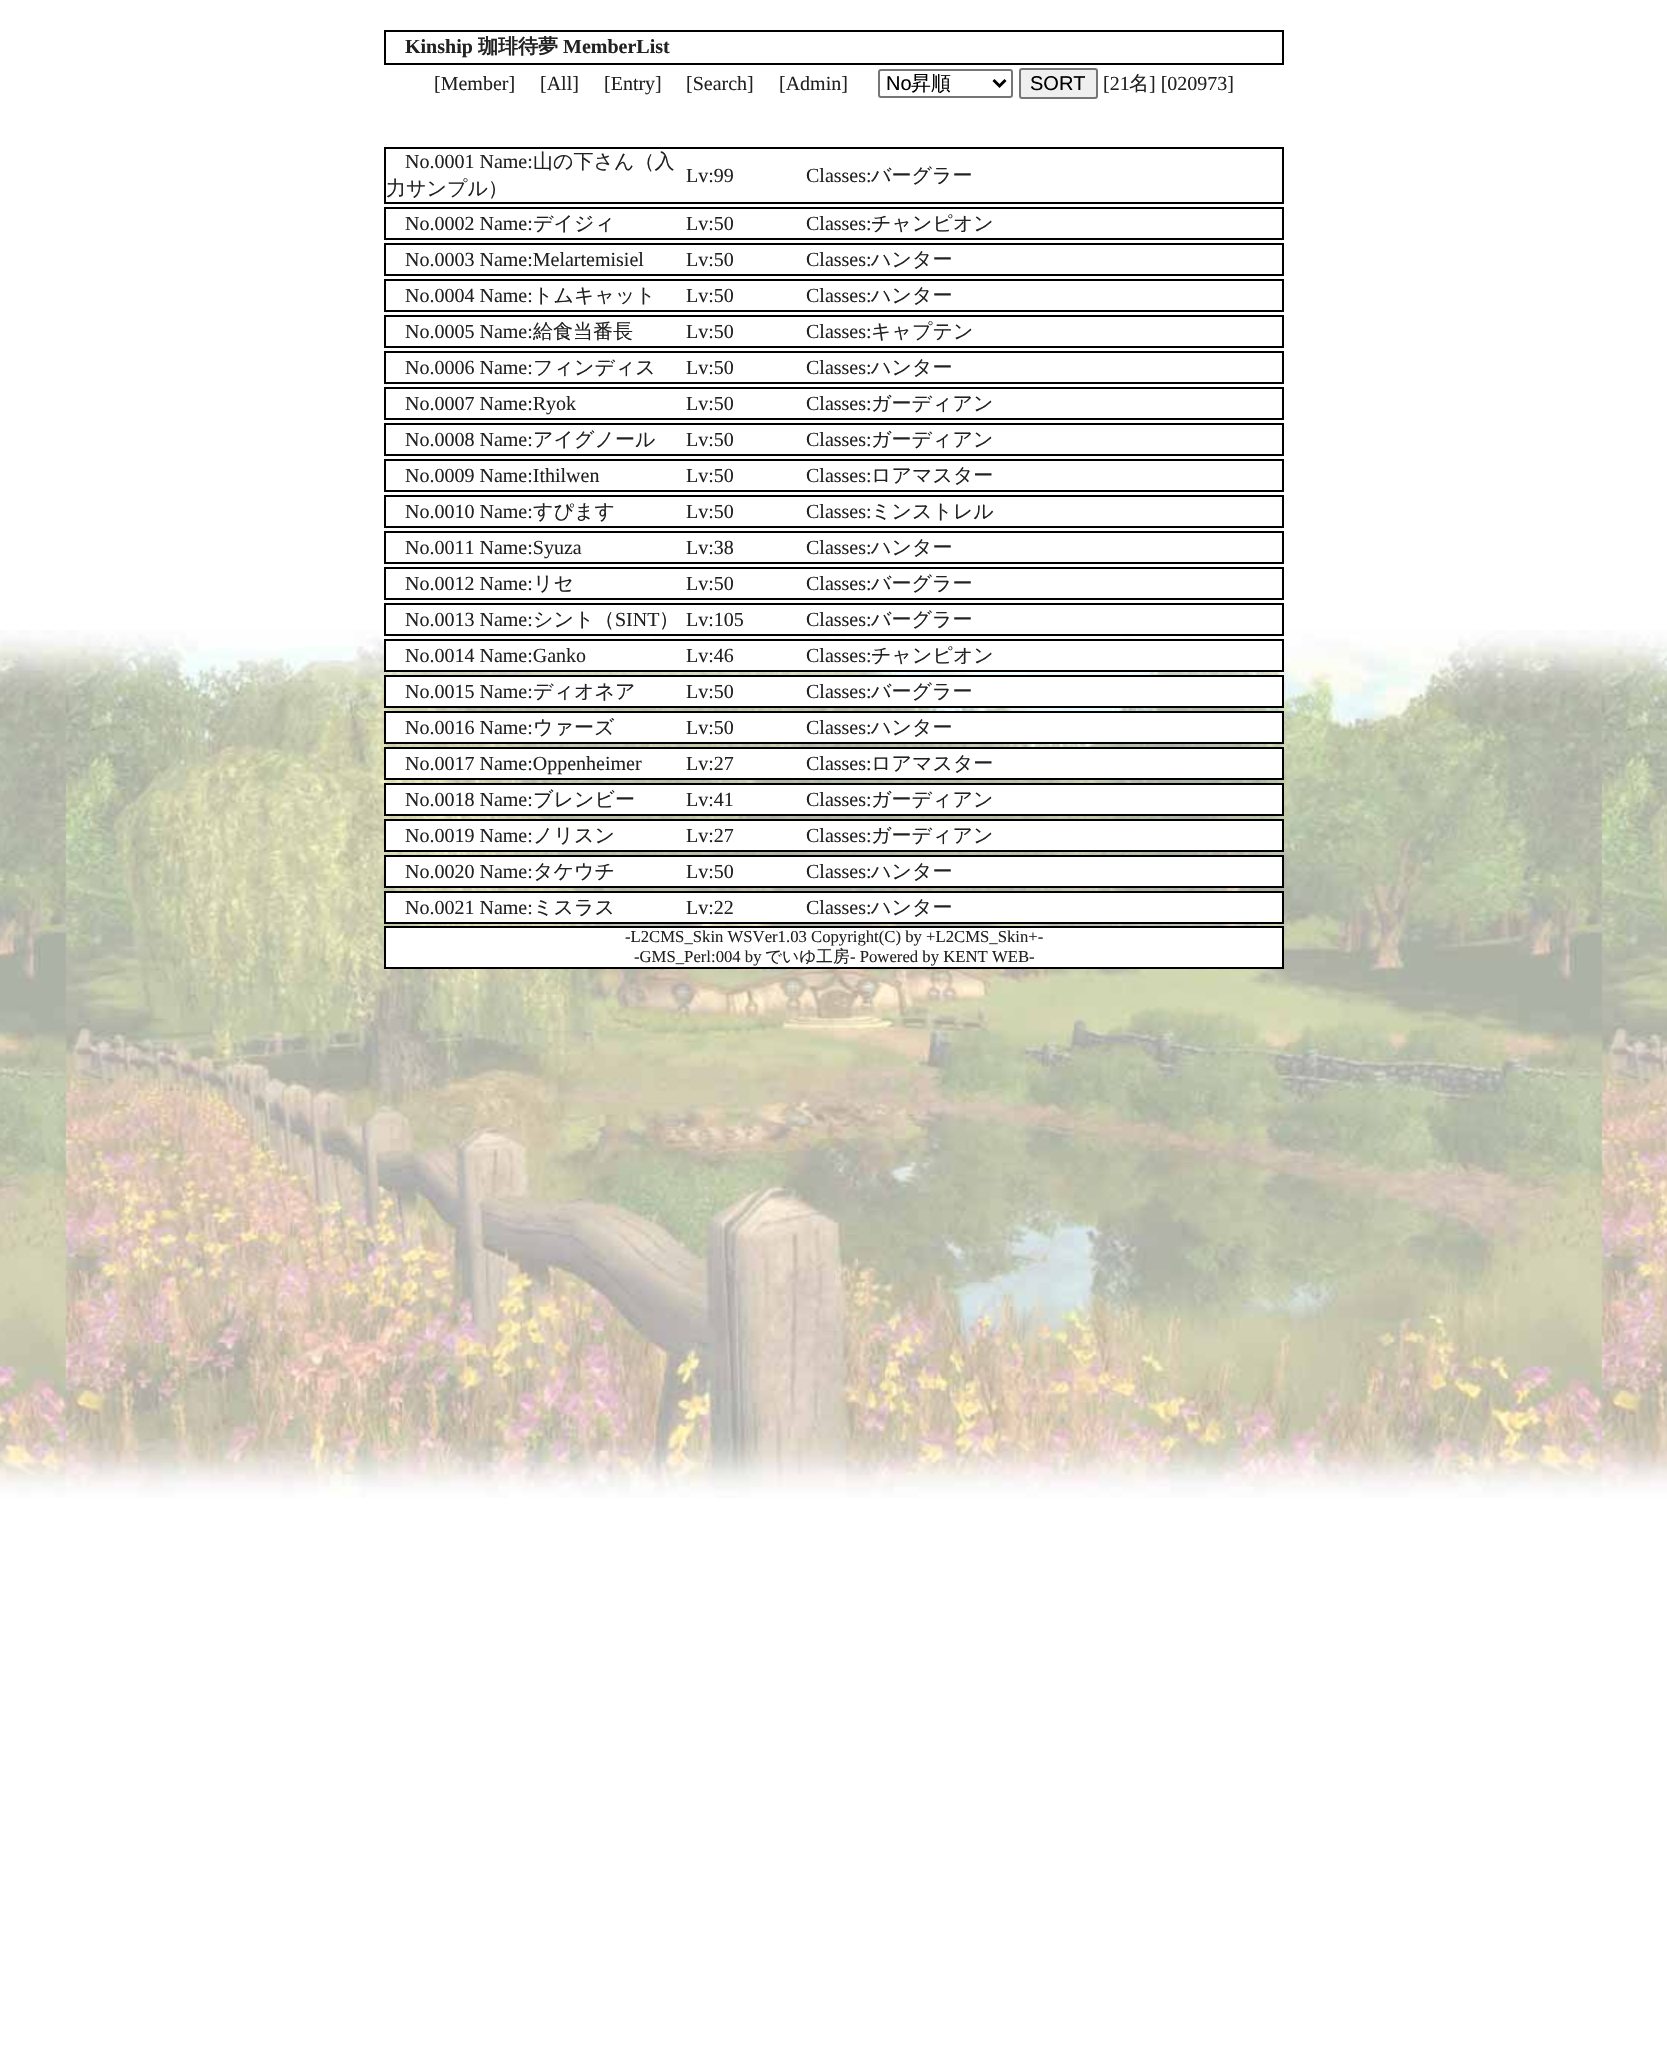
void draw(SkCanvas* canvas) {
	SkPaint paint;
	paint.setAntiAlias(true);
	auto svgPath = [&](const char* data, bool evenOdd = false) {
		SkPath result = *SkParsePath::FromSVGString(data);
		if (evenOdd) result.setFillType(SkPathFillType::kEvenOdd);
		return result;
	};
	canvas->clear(0xffffffff);
	canvas->drawImageRect(SkImages::DeferredFromEncodedData(SkData::MakeFromFileName("img1.png")), SkRect::MakeXYWH(0, 630, 1667, 868), SkSamplingOptions());
	paint.setStroke(true);
	paint.setStrokeWidth(2);
	paint.setColor(0xff000000);
	canvas->drawRect(SkRect::MakeXYWH(385, 31, 898, 33), paint);
	SkFont f1(fontMgr->matchFamilyStyle("Liberation Serif", SkFontStyle::Bold()), 20);
	f1.setSubpixel(true);
	paint.setStroke(false);
	paint.setColor(0xff222222);
	canvas->drawString("Kinship", 405, 53, f1, paint);
	SkFont f2(fontMgr->matchFamilyStyle("WenQuanYi Zen Hei", SkFontStyle::Bold()), 20);
	f2.setSubpixel(true);
	canvas->drawString("珈琲待夢", 478, 53, f2, paint);
	canvas->drawString("MemberList", 563, 53, f1, paint);
	SkFont f3(fontMgr->matchFamilyStyle("Liberation Serif", SkFontStyle::Normal()), 20);
	f3.setSubpixel(true);
	canvas->drawString("[Member]", 434, 90, f3, paint);
	canvas->drawString("[All]", 540, 90, f3, paint);
	canvas->drawString("[Entry]", 604, 90, f3, paint);
	canvas->drawString("[Search]", 686, 90, f3, paint);
	canvas->drawString("[Admin]", 779, 90, f3, paint);
	paint.setStroke(true);
	paint.setColor(0xff767676);
	canvas->drawRoundRect(SkRect::MakeXYWH(879, 70, 133, 27), 2, 2, paint);
	paint.setStrokeWidth(3);
	paint.setColor(0xff000000);
	canvas->drawPath(svgPath("M993.5 80L999.5 86L1005.5 80"), paint);
	SkFont f4(fontMgr->matchFamilyStyle("Liberation Sans", SkFontStyle::Normal()), 20);
	f4.setSubpixel(true);
	paint.setStroke(false);
	canvas->drawString("No", 886, 90, f4, paint);
	SkFont f5(fontMgr->matchFamilyStyle("WenQuanYi Zen Hei", SkFontStyle(500, SkFontStyle::kNormal_Width, SkFontStyle::kUpright_Slant)), 20);
	f5.setSubpixel(true);
	canvas->drawString("昇順", 911, 90, f5, paint);
	paint.setColor(0xffefefef);
	canvas->drawRoundRect(SkRect::MakeXYWH(1020, 69, 77, 29), 2, 2, paint);
	paint.setStroke(true);
	paint.setStrokeWidth(2);
	paint.setColor(0xff767676);
	canvas->drawRoundRect(SkRect::MakeXYWH(1020, 69, 77, 29), 2, 2, paint);
	paint.setStroke(false);
	paint.setColor(0xff000000);
	canvas->drawString("SORT", 1030, 90, f4, paint);
	paint.setColor(0xff222222);
	canvas->drawString("[21", 1103, 90, f3, paint);
	canvas->drawString("名", 1129, 90, f5, paint);
	canvas->drawString("] [020973]", 1149, 90, f3, paint);
	paint.setStroke(true);
	paint.setColor(0xff000000);
	canvas->drawRect(SkRect::MakeXYWH(385, 148, 898, 55), paint);
	paint.setStroke(false);
	paint.setColor(0xff222222);
	canvas->drawString("No.0001 Name:", 405, 168, f3, paint);
	canvas->drawString("山の下さん（入", 533, 168, f5, paint);
	canvas->drawString("力サンプル）", 386, 195, f5, paint);
	canvas->drawString("Lv:99", 686, 182, f3, paint);
	canvas->drawString("Classes:", 806, 182, f3, paint);
	canvas->drawString("バーグラー", 871, 182, f5, paint);
	paint.setStroke(true);
	paint.setColor(0xff000000);
	canvas->drawRect(SkRect::MakeXYWH(385, 208, 898, 31), paint);
	paint.setStroke(false);
	paint.setColor(0xff222222);
	canvas->drawString("No.0002 Name:", 405, 230, f3, paint);
	canvas->drawString("デイジィ", 533, 230, f5, paint);
	canvas->drawString("Lv:50", 686, 230, f3, paint);
	canvas->drawString("Classes:", 806, 230, f3, paint);
	canvas->drawString("チャンピオン", 871, 230, f5, paint);
	paint.setStroke(true);
	paint.setColor(0xff000000);
	canvas->drawRect(SkRect::MakeXYWH(385, 244, 898, 31), paint);
	paint.setStroke(false);
	paint.setColor(0xff222222);
	canvas->drawString("No.0003 Name:Melartemisiel", 405, 266, f3, paint);
	canvas->drawString("Lv:50", 686, 266, f3, paint);
	canvas->drawString("Classes:", 806, 266, f3, paint);
	canvas->drawString("ハンター", 871, 266, f5, paint);
	paint.setStroke(true);
	paint.setColor(0xff000000);
	canvas->drawRect(SkRect::MakeXYWH(385, 280, 898, 31), paint);
	paint.setStroke(false);
	paint.setColor(0xff222222);
	canvas->drawString("No.0004 Name:", 405, 302, f3, paint);
	canvas->drawString("トムキャット", 533, 302, f5, paint);
	canvas->drawString("Lv:50", 686, 302, f3, paint);
	canvas->drawString("Classes:", 806, 302, f3, paint);
	canvas->drawString("ハンター", 871, 302, f5, paint);
	paint.setStroke(true);
	paint.setColor(0xff000000);
	canvas->drawRect(SkRect::MakeXYWH(385, 316, 898, 31), paint);
	paint.setStroke(false);
	paint.setColor(0xff222222);
	canvas->drawString("No.0005 Name:", 405, 338, f3, paint);
	canvas->drawString("給食当番長", 533, 338, f5, paint);
	canvas->drawString("Lv:50", 686, 338, f3, paint);
	canvas->drawString("Classes:", 806, 338, f3, paint);
	canvas->drawString("キャプテン", 871, 338, f5, paint);
	paint.setStroke(true);
	paint.setColor(0xff000000);
	canvas->drawRect(SkRect::MakeXYWH(385, 352, 898, 31), paint);
	paint.setStroke(false);
	paint.setColor(0xff222222);
	canvas->drawString("No.0006 Name:", 405, 374, f3, paint);
	canvas->drawString("フィンディス", 533, 374, f5, paint);
	canvas->drawString("Lv:50", 686, 374, f3, paint);
	canvas->drawString("Classes:", 806, 374, f3, paint);
	canvas->drawString("ハンター", 871, 374, f5, paint);
	paint.setStroke(true);
	paint.setColor(0xff000000);
	canvas->drawRect(SkRect::MakeXYWH(385, 388, 898, 31), paint);
	paint.setStroke(false);
	paint.setColor(0xff222222);
	canvas->drawString("No.0007 Name:Ryok", 405, 410, f3, paint);
	canvas->drawString("Lv:50", 686, 410, f3, paint);
	canvas->drawString("Classes:", 806, 410, f3, paint);
	canvas->drawString("ガーディアン", 871, 410, f5, paint);
	paint.setStroke(true);
	paint.setColor(0xff000000);
	canvas->drawRect(SkRect::MakeXYWH(385, 424, 898, 31), paint);
	paint.setStroke(false);
	paint.setColor(0xff222222);
	canvas->drawString("No.0008 Name:", 405, 446, f3, paint);
	canvas->drawString("アイグノール", 533, 446, f5, paint);
	canvas->drawString("Lv:50", 686, 446, f3, paint);
	canvas->drawString("Classes:", 806, 446, f3, paint);
	canvas->drawString("ガーディアン", 871, 446, f5, paint);
	paint.setStroke(true);
	paint.setColor(0xff000000);
	canvas->drawRect(SkRect::MakeXYWH(385, 460, 898, 31), paint);
	paint.setStroke(false);
	paint.setColor(0xff222222);
	canvas->drawString("No.0009 Name:Ithilwen", 405, 482, f3, paint);
	canvas->drawString("Lv:50", 686, 482, f3, paint);
	canvas->drawString("Classes:", 806, 482, f3, paint);
	canvas->drawString("ロアマスター", 871, 482, f5, paint);
	paint.setStroke(true);
	paint.setColor(0xff000000);
	canvas->drawRect(SkRect::MakeXYWH(385, 496, 898, 31), paint);
	paint.setStroke(false);
	paint.setColor(0xff222222);
	canvas->drawString("No.0010 Name:", 405, 518, f3, paint);
	canvas->drawString("すぴます", 533, 518, f5, paint);
	canvas->drawString("Lv:50", 686, 518, f3, paint);
	canvas->drawString("Classes:", 806, 518, f3, paint);
	canvas->drawString("ミンストレル", 871, 518, f5, paint);
	paint.setStroke(true);
	paint.setColor(0xff000000);
	canvas->drawRect(SkRect::MakeXYWH(385, 532, 898, 31), paint);
	paint.setStroke(false);
	paint.setColor(0xff222222);
	canvas->drawString("No.0011 Name:Syuza", 405, 554, f3, paint);
	canvas->drawString("Lv:38", 686, 554, f3, paint);
	canvas->drawString("Classes:", 806, 554, f3, paint);
	canvas->drawString("ハンター", 871, 554, f5, paint);
	paint.setStroke(true);
	paint.setColor(0xff000000);
	canvas->drawRect(SkRect::MakeXYWH(385, 568, 898, 31), paint);
	paint.setStroke(false);
	paint.setColor(0xff222222);
	canvas->drawString("No.0012 Name:", 405, 590, f3, paint);
	canvas->drawString("リセ", 533, 590, f5, paint);
	canvas->drawString("Lv:50", 686, 590, f3, paint);
	canvas->drawString("Classes:", 806, 590, f3, paint);
	canvas->drawString("バーグラー", 871, 590, f5, paint);
	paint.setColor(0xffffffff);
	canvas->drawRect(SkRect::MakeXYWH(390, 630, 444, 4), paint);
	paint.setStroke(true);
	paint.setColor(0xff000000);
	canvas->drawRect(SkRect::MakeXYWH(385, 604, 898, 31), paint);
	paint.setStroke(false);
	paint.setColor(0xff222222);
	canvas->drawString("No.0013 Name:", 405, 626, f3, paint);
	canvas->drawString("シント（", 533, 626, f5, paint);
	canvas->drawString("SINT", 615, 626, f3, paint);
	canvas->drawString("）", 659, 626, f5, paint);
	canvas->drawString("Lv:105", 686, 626, f3, paint);
	canvas->drawString("Classes:", 806, 626, f3, paint);
	canvas->drawString("バーグラー", 871, 626, f5, paint);
	paint.setColor(0xffffffff);
	canvas->drawRect(SkRect::MakeXYWH(385, 640, 898, 31), paint);
	paint.setStroke(true);
	paint.setColor(0xff000000);
	canvas->drawRect(SkRect::MakeXYWH(385, 640, 898, 31), paint);
	paint.setStroke(false);
	paint.setColor(0xff222222);
	canvas->drawString("No.0014 Name:Ganko", 405, 662, f3, paint);
	canvas->drawString("Lv:46", 686, 662, f3, paint);
	canvas->drawString("Classes:", 806, 662, f3, paint);
	canvas->drawString("チャンピオン", 871, 662, f5, paint);
	paint.setColor(0xffffffff);
	canvas->drawRect(SkRect::MakeXYWH(385, 676, 898, 31), paint);
	paint.setStroke(true);
	paint.setColor(0xff000000);
	canvas->drawRect(SkRect::MakeXYWH(385, 676, 898, 31), paint);
	paint.setStroke(false);
	paint.setColor(0xff222222);
	canvas->drawString("No.0015 Name:", 405, 698, f3, paint);
	canvas->drawString("ディオネア", 533, 698, f5, paint);
	canvas->drawString("Lv:50", 686, 698, f3, paint);
	canvas->drawString("Classes:", 806, 698, f3, paint);
	canvas->drawString("バーグラー", 871, 698, f5, paint);
	paint.setColor(0xffffffff);
	canvas->drawRect(SkRect::MakeXYWH(385, 712, 898, 31), paint);
	paint.setStroke(true);
	paint.setColor(0xff000000);
	canvas->drawRect(SkRect::MakeXYWH(385, 712, 898, 31), paint);
	paint.setStroke(false);
	paint.setColor(0xff222222);
	canvas->drawString("No.0016 Name:", 405, 734, f3, paint);
	canvas->drawString("ウァーズ", 533, 734, f5, paint);
	canvas->drawString("Lv:50", 686, 734, f3, paint);
	canvas->drawString("Classes:", 806, 734, f3, paint);
	canvas->drawString("ハンター", 871, 734, f5, paint);
	paint.setColor(0xffffffff);
	canvas->drawRect(SkRect::MakeXYWH(385, 748, 898, 31), paint);
	paint.setStroke(true);
	paint.setColor(0xff000000);
	canvas->drawRect(SkRect::MakeXYWH(385, 748, 898, 31), paint);
	paint.setStroke(false);
	paint.setColor(0xff222222);
	canvas->drawString("No.0017 Name:Oppenheimer", 405, 770, f3, paint);
	canvas->drawString("Lv:27", 686, 770, f3, paint);
	canvas->drawString("Classes:", 806, 770, f3, paint);
	canvas->drawString("ロアマスター", 871, 770, f5, paint);
	paint.setColor(0xffffffff);
	canvas->drawRect(SkRect::MakeXYWH(385, 784, 898, 31), paint);
	paint.setStroke(true);
	paint.setColor(0xff000000);
	canvas->drawRect(SkRect::MakeXYWH(385, 784, 898, 31), paint);
	paint.setStroke(false);
	paint.setColor(0xff222222);
	canvas->drawString("No.0018 Name:", 405, 806, f3, paint);
	canvas->drawString("ブレンビー", 533, 806, f5, paint);
	canvas->drawString("Lv:41", 686, 806, f3, paint);
	canvas->drawString("Classes:", 806, 806, f3, paint);
	canvas->drawString("ガーディアン", 871, 806, f5, paint);
	paint.setColor(0xffffffff);
	canvas->drawRect(SkRect::MakeXYWH(385, 820, 898, 31), paint);
	paint.setStroke(true);
	paint.setColor(0xff000000);
	canvas->drawRect(SkRect::MakeXYWH(385, 820, 898, 31), paint);
	paint.setStroke(false);
	paint.setColor(0xff222222);
	canvas->drawString("No.0019 Name:", 405, 842, f3, paint);
	canvas->drawString("ノリスン", 533, 842, f5, paint);
	canvas->drawString("Lv:27", 686, 842, f3, paint);
	canvas->drawString("Classes:", 806, 842, f3, paint);
	canvas->drawString("ガーディアン", 871, 842, f5, paint);
	paint.setColor(0xffffffff);
	canvas->drawRect(SkRect::MakeXYWH(385, 856, 898, 31), paint);
	paint.setStroke(true);
	paint.setColor(0xff000000);
	canvas->drawRect(SkRect::MakeXYWH(385, 856, 898, 31), paint);
	paint.setStroke(false);
	paint.setColor(0xff222222);
	canvas->drawString("No.0020 Name:", 405, 878, f3, paint);
	canvas->drawString("タケウチ", 533, 878, f5, paint);
	canvas->drawString("Lv:50", 686, 878, f3, paint);
	canvas->drawString("Classes:", 806, 878, f3, paint);
	canvas->drawString("ハンター", 871, 878, f5, paint);
	paint.setColor(0xffffffff);
	canvas->drawRect(SkRect::MakeXYWH(385, 892, 898, 31), paint);
	paint.setStroke(true);
	paint.setColor(0xff000000);
	canvas->drawRect(SkRect::MakeXYWH(385, 892, 898, 31), paint);
	paint.setStroke(false);
	paint.setColor(0xff222222);
	canvas->drawString("No.0021 Name:", 405, 914, f3, paint);
	canvas->drawString("ミスラス", 533, 914, f5, paint);
	canvas->drawString("Lv:22", 686, 914, f3, paint);
	canvas->drawString("Classes:", 806, 914, f3, paint);
	canvas->drawString("ハンター", 871, 914, f5, paint);
	paint.setColor(0xffffffff);
	canvas->drawRect(SkRect::MakeXYWH(385, 927, 898, 41), paint);
	paint.setStroke(true);
	paint.setColor(0xff000000);
	canvas->drawRect(SkRect::MakeXYWH(385, 927, 898, 41), paint);
	SkFont f6(fontMgr->matchFamilyStyle("Liberation Serif", SkFontStyle::Normal()), 16.7);
	f6.setSubpixel(true);
	paint.setStroke(false);
	paint.setColor(0xff222222);
	canvas->drawString("-L2CMS_Skin WSVer1.03 Copyright(C) by +L2CMS_Skin+-", 625, 942, f6, paint);
	canvas->drawString("-GMS_Perl:004 by", 634, 962, f6, paint);
	SkFont f7(fontMgr->matchFamilyStyle("WenQuanYi Zen Hei", SkFontStyle(500, SkFontStyle::kNormal_Width, SkFontStyle::kUpright_Slant)), 16.7);
	f7.setSubpixel(true);
	canvas->drawString("でいゆ工房", 765, 962, f7, paint);
	canvas->drawString("- Powered by KENT WEB-", 850, 962, f6, paint);
}
